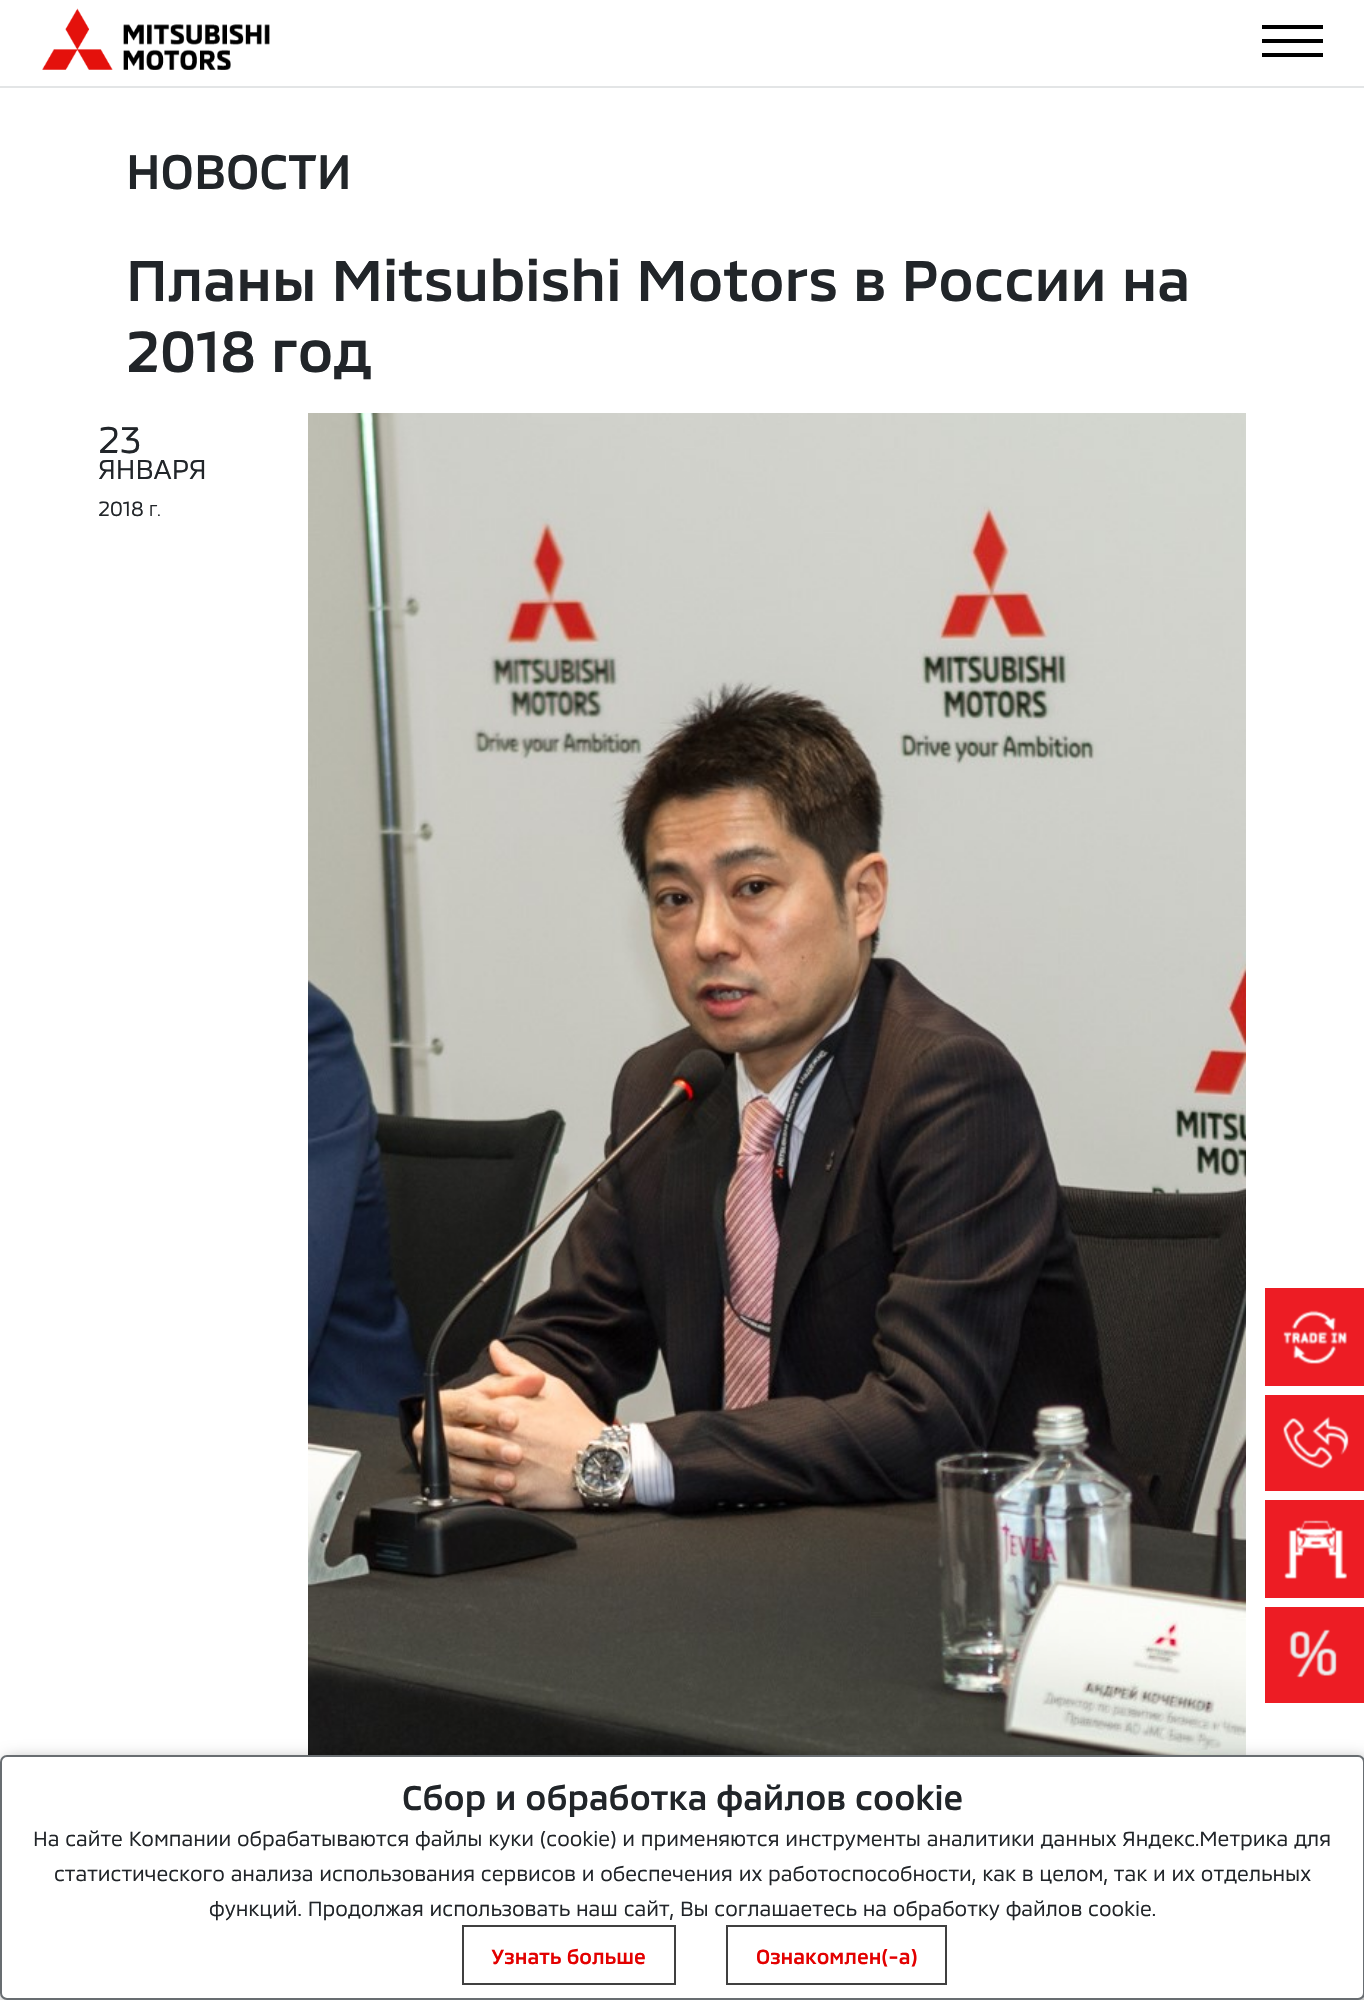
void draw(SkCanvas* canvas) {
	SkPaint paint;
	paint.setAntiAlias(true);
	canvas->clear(0xffffffff);
	paint.setColor(0xffe3e5e6);
	canvas->drawRect(SkRect::MakeXYWH(0, 86, 1364, 2), paint);
	canvas->drawImageRect(SkImages::DeferredFromEncodedData(SkData::MakeFromFileName("img1.png")), SkRect::MakeXYWH(42, 8, 228, 62), SkSamplingOptions());
	paint.setColor(0xff000000);
	canvas->drawRect(SkRect::MakeXYWH(1262, 25, 61, 4), paint);
	canvas->drawRect(SkRect::MakeXYWH(1262, 39, 61, 4), paint);
	canvas->drawRect(SkRect::MakeXYWH(1262, 53, 61, 4), paint);
	SkFont f1(fontMgr->matchFamilyStyle("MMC", SkFontStyle(500, SkFontStyle::kNormal_Width, SkFontStyle::kUpright_Slant)), 49.5);
	f1.setSubpixel(true);
	paint.setColor(0xff212529);
	canvas->drawString("НОВОСТИ", 126, 189, f1, paint);
	SkFont f2(fontMgr->matchFamilyStyle("MMC", SkFontStyle(500, SkFontStyle::kNormal_Width, SkFontStyle::kUpright_Slant)), 59);
	f2.setSubpixel(true);
	canvas->drawString("Планы Mitsubishi Motors в России на", 126, 301, f2, paint);
	canvas->drawString("2018 год", 126, 372, f2, paint);
	SkFont f3(fontMgr->matchFamilyStyle("MMC", SkFontStyle::Normal()), 38);
	f3.setSubpixel(true);
	canvas->drawString("23", 98, 453, f3, paint);
	SkFont f4(fontMgr->matchFamilyStyle("MMC", SkFontStyle::Normal()), 28);
	f4.setSubpixel(true);
	canvas->drawString("ЯНВАРЯ", 98, 479, f4, paint);
	SkFont f5(fontMgr->matchFamilyStyle("MMC", SkFontStyle::Normal()), 21);
	f5.setSubpixel(true);
	canvas->drawString("2018", 98, 516, f5, paint);
	SkFont f6(fontMgr->matchFamilyStyle("MMC", SkFontStyle::Normal()), 16);
	f6.setSubpixel(true);
	canvas->drawString("Г.", 149, 516, f6, paint);
	canvas->drawImageRect(SkImages::DeferredFromEncodedData(SkData::MakeFromFileName("img2.png")), SkRect::MakeXYWH(308, 413, 938, 1342), SkSamplingOptions());
	paint.setColor(0xffed1c24);
	canvas->drawRect(SkRect::MakeXYWH(1265, 1288, 99, 98), paint);
	canvas->drawImageRect(SkImages::DeferredFromEncodedData(SkData::MakeFromFileName("img3.png")), SkRect::MakeXYWH(1283, 1310, 64, 54), SkSamplingOptions());
	canvas->drawRect(SkRect::MakeXYWH(1265, 1395, 99, 96), paint);
	canvas->drawImageRect(SkImages::DeferredFromEncodedData(SkData::MakeFromFileName("img4.png")), SkRect::MakeXYWH(1283, 1416, 66, 53), SkSamplingOptions());
	canvas->drawRect(SkRect::MakeXYWH(1265, 1500, 99, 98), paint);
	canvas->drawImageRect(SkImages::DeferredFromEncodedData(SkData::MakeFromFileName("img5.png")), SkRect::MakeXYWH(1284, 1520, 63, 59), SkSamplingOptions());
	canvas->drawRect(SkRect::MakeXYWH(1265, 1607, 99, 96), paint);
	canvas->drawImageRect(SkImages::DeferredFromEncodedData(SkData::MakeFromFileName("img6.png")), SkRect::MakeXYWH(1289, 1629, 48, 49), SkSamplingOptions());
	paint.setColor(0x66000000);
	paint.setMaskFilter(SkMaskFilter::MakeBlur(kNormal_SkBlurStyle, 9));
	canvas->drawRoundRect(SkRect::MakeXYWH(4, 1761, 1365, 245), 7, 7, paint);
	paint.setMaskFilter(nullptr);
	paint.setColor(0xffffffff);
	canvas->drawRoundRect(SkRect::MakeXYWH(1, 1756, 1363, 243), 6, 6, paint);
	paint.setStroke(true);
	paint.setStrokeWidth(2);
	paint.setColor(0xff686d71);
	canvas->drawRoundRect(SkRect::MakeXYWH(1, 1756, 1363, 243), 6, 6, paint);
	SkFont f7(fontMgr->matchFamilyStyle("MMC", SkFontStyle(500, SkFontStyle::kNormal_Width, SkFontStyle::kUpright_Slant)), 35);
	f7.setSubpixel(true);
	paint.setStroke(false);
	paint.setColor(0xff212529);
	canvas->drawString("Сбор и обработка файлов cookie", 402, 1810, f7, paint);
	canvas->drawString("На сайте Компании обрабатываются файлы куки (cookie) и применяются инструменты аналитики данных Яндекс.Метрика для", 33, 1846, f5, paint);
	canvas->drawString("статистического анализа использования сервисов и обеспечения их работоспособности, как в целом, так и их отдельных", 54, 1881, f5, paint);
	canvas->drawString("функций. Продолжая использовать наш сайт, Вы соглашаетесь на обработку файлов cookie.", 209, 1916, f5, paint);
	paint.setStroke(true);
	paint.setColor(0xff404040);
	canvas->drawRect(SkRect::MakeXYWH(463, 1926, 212, 58), paint);
	SkFont f8(fontMgr->matchFamilyStyle("MMC", SkFontStyle(500, SkFontStyle::kNormal_Width, SkFontStyle::kUpright_Slant)), 21);
	f8.setSubpixel(true);
	paint.setStroke(false);
	paint.setColor(0xffe30000);
	canvas->drawString("Узнать больше", 491, 1964, f8, paint);
	paint.setStroke(true);
	paint.setColor(0xff404040);
	canvas->drawRect(SkRect::MakeXYWH(727, 1926, 219, 58), paint);
	paint.setStroke(false);
	paint.setColor(0xffe30000);
	canvas->drawString("Ознакомлен(-а)", 756, 1964, f8, paint);
}
